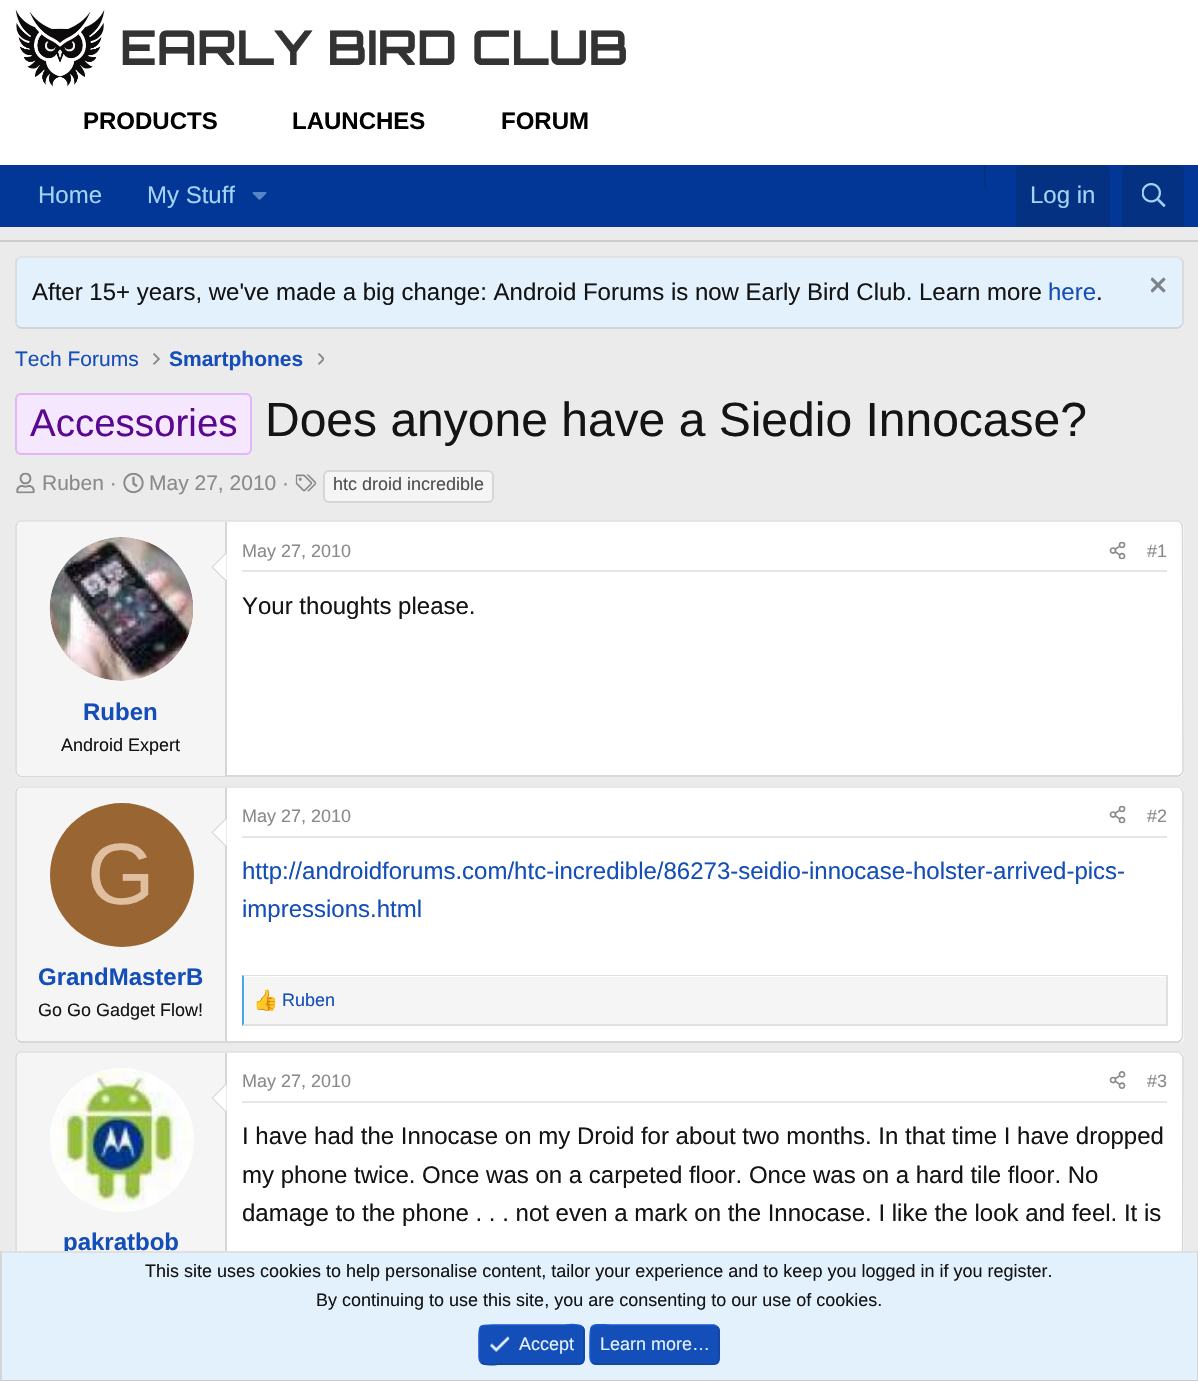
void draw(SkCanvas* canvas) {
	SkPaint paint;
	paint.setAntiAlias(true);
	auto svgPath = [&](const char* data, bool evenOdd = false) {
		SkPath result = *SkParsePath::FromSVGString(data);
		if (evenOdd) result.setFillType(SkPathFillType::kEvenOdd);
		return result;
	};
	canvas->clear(0xffebebeb);
	paint.setColor(0xffffffff);
	canvas->drawRect(SkRect::MakeXYWH(0, 0, 1198, 165), paint);
	canvas->drawImageRect(SkImages::DeferredFromEncodedData(SkData::MakeFromFileName("img1.png")), SkRect::MakeXYWH(15, 9, 90, 78), SkSamplingOptions());
	SkFont f1(fontMgr->matchFamilyStyle("Orbitron", SkFontStyle::Bold()), 48);
	f1.setSubpixel(true);
	paint.setColor(0xff333333);
	canvas->drawString("EARLY BIRD CLUB", 120, 65, f1, paint);
	SkFont f2(fontMgr->matchFamilyStyle("Liberation Sans", SkFontStyle::Bold()), 24);
	f2.setSubpixel(true);
	paint.setColor(0xff000000);
	canvas->drawString("PRODUCTS", 83, 129, f2, paint);
	canvas->drawString("LAUNCHES", 292, 129, f2, paint);
	canvas->drawString("FORUM", 501, 129, f2, paint);
	paint.setColor(0xff023697);
	canvas->drawRect(SkRect::MakeXYWH(0, 165, 1198, 62), paint);
	SkFont f3(fontMgr->matchFamilyStyle("Liberation Sans", SkFontStyle::Normal()), 24);
	f3.setSubpixel(true);
	paint.setColor(0xffa3d4f5);
	canvas->drawString("Home", 38, 203, f3, paint);
	canvas->drawString("My Stuff", 147, 203, f3, paint);
	canvas->drawImageRect(SkImages::DeferredFromEncodedData(SkData::MakeFromFileName("img2.png")), SkRect::MakeXYWH(252, 192, 15, 8), SkSamplingOptions());
	paint.setColor(0xff053183);
	canvas->drawRect(SkRect::MakeXYWH(984, 165, 2, 24), paint);
	canvas->drawPath(svgPath("M1022 165H1104C1107.5 165 1110 167.5 1110 171V227H1016V171C1016 167.5 1018.5 165 1022 165Z"), paint);
	paint.setColor(0xffa3d4f5);
	canvas->drawString("Log in", 1030, 203, f3, paint);
	paint.setColor(0xff053183);
	canvas->drawPath(svgPath("M1128 165H1178C1181.5 165 1184 167.5 1184 171V227H1122V171C1122 167.5 1124.5 165 1128 165Z"), paint);
	canvas->drawImageRect(SkImages::DeferredFromEncodedData(SkData::MakeFromFileName("img3.png")), SkRect::MakeXYWH(1142, 183, 24, 24), SkSamplingOptions());
	paint.setColor(0xffcccccc);
	canvas->drawRect(SkRect::MakeXYWH(0, 240, 1198, 2), paint);
	paint.setColor(0xffe3f1fd);
	canvas->drawRoundRect(SkRect::MakeXYWH(15, 257, 1169, 72), 6, 6, paint);
	paint.setStroke(true);
	paint.setStrokeWidth(1.5);
	paint.setColor(0xffe0e0e0);
	canvas->drawPath(svgPath("M17.5 259C18.5 258 19.5 257 21 257H1177.5C1179 257 1180 258 1181 259"), paint);
	paint.setColor(0xffd6d6d6);
	canvas->drawPath(svgPath("M1181 259C1182 260 1183 261 1183 262.5V322.5C1183 324 1182 325 1181 326"), paint);
	paint.setColor(0xffcccccc);
	canvas->drawPath(svgPath("M1181 326C1180 327 1179 328 1177.5 328H21C19.5 328 18.5 327 17.5 326"), paint);
	paint.setColor(0xffd6d6d6);
	canvas->drawPath(svgPath("M17.5 326C16.5 325 16 324 16 322.5V262.5C16 261 16.5 260 17.5 259"), paint);
	paint.setStroke(false);
	paint.setColor(0xff141414);
	canvas->drawString("After 15+ years, we've made a big change: Android Forums is now Early Bird Club. Learn more", 32, 300, f3, paint);
	paint.setColor(0xff144eb8);
	canvas->drawString("here", 1048, 300, f3, paint);
	paint.setColor(0xff141414);
	canvas->drawString(".", 1096, 300, f3, paint);
	canvas->drawImageRect(SkImages::DeferredFromEncodedData(SkData::MakeFromFileName("img4.png")), SkRect::MakeXYWH(1151, 277, 15, 16), SkSamplingOptions());
	SkFont f4(fontMgr->matchFamilyStyle("Liberation Sans", SkFontStyle::Normal()), 21);
	f4.setSubpixel(true);
	paint.setColor(0xff144eb8);
	canvas->drawString("Tech Forums", 15, 366, f4, paint);
	canvas->drawImageRect(SkImages::DeferredFromEncodedData(SkData::MakeFromFileName("img5.png")), SkRect::MakeXYWH(153, 353, 7, 12), SkSamplingOptions());
	SkFont f5(fontMgr->matchFamilyStyle("Liberation Sans", SkFontStyle::Bold()), 21);
	f5.setSubpixel(true);
	canvas->drawString("Smartphones", 169, 366, f5, paint);
	canvas->drawImageRect(SkImages::DeferredFromEncodedData(SkData::MakeFromFileName("img6.png")), SkRect::MakeXYWH(318, 353, 6, 12), SkSamplingOptions());
	paint.setColor(0xfff5e7fe);
	canvas->drawRoundRect(SkRect::MakeXYWH(16, 394, 235, 60), 5, 5, paint);
	paint.setStroke(true);
	paint.setStrokeWidth(2);
	paint.setColor(0xffe0b6fb);
	canvas->drawRoundRect(SkRect::MakeXYWH(16, 394, 235, 60), 5, 5, paint);
	SkFont f6(fontMgr->matchFamilyStyle("Liberation Sans", SkFontStyle::Normal()), 38.5);
	f6.setSubpixel(true);
	paint.setStroke(false);
	paint.setColor(0xff5a0891);
	canvas->drawString("Accessories", 30, 436, f6, paint);
	SkFont f7(fontMgr->matchFamilyStyle("Liberation Sans", SkFontStyle::Normal()), 48);
	f7.setSubpixel(true);
	paint.setColor(0xff141414);
	canvas->drawString("Does anyone have a Siedio Innocase?", 265, 436, f7, paint);
	canvas->drawImageRect(SkImages::DeferredFromEncodedData(SkData::MakeFromFileName("img7.png")), SkRect::MakeXYWH(16, 472, 19, 22), SkSamplingOptions());
	paint.setColor(0xff8a8a8a);
	canvas->drawString("Ruben ·", 42, 490, f4, paint);
	canvas->drawImageRect(SkImages::DeferredFromEncodedData(SkData::MakeFromFileName("img8.png")), SkRect::MakeXYWH(123, 472, 21, 22), SkSamplingOptions());
	canvas->drawString("May 27, 2010 ·", 149, 490, f4, paint);
	canvas->drawImageRect(SkImages::DeferredFromEncodedData(SkData::MakeFromFileName("img9.png")), SkRect::MakeXYWH(295, 474, 22, 18), SkSamplingOptions());
	paint.setColor(0xfff5f5f5);
	canvas->drawRoundRect(SkRect::MakeXYWH(324, 471, 169, 31), 5, 5, paint);
	paint.setStroke(true);
	paint.setColor(0xffd6d6d6);
	canvas->drawRoundRect(SkRect::MakeXYWH(324, 471, 169, 31), 5, 5, paint);
	SkFont f8(fontMgr->matchFamilyStyle("Liberation Sans", SkFontStyle::Normal()), 18);
	f8.setSubpixel(true);
	paint.setStroke(false);
	paint.setColor(0xff4f4f4f);
	canvas->drawString("htc droid incredible", 333, 490, f8, paint);
	paint.setColor(0xffffffff);
	canvas->drawRoundRect(SkRect::MakeXYWH(15, 521, 1169, 256), 6, 6, paint);
	paint.setStroke(true);
	paint.setStrokeWidth(1.5);
	paint.setColor(0xffe0e0e0);
	canvas->drawPath(svgPath("M17.5 523C18.5 522 19.5 521 21 521H1177.5C1179 521 1180 522 1181 523"), paint);
	paint.setColor(0xffd6d6d6);
	canvas->drawPath(svgPath("M1181 523L1182.5 526L1183 771C1182.5 772.5 1182 773.5 1181 774.5"), paint);
	paint.setColor(0xffcccccc);
	canvas->drawPath(svgPath("M1181 774.5C1180 775.5 1179 776 1177.5 776H21C19.5 776 18.5 775.5 17.5 774.5"), paint);
	paint.setColor(0xffd6d6d6);
	canvas->drawPath(svgPath("M17.5 774.5C16.5 773.5 16 772.5 16 771V526L17.5 523"), paint);
	paint.setStroke(false);
	paint.setColor(0xffe6e6e6);
	canvas->drawRect(SkRect::MakeXYWH(242, 570, 925, 2), paint);
	paint.setColor(0xff8a8a8a);
	canvas->drawString("May 27, 2010", 242, 557, f8, paint);
	canvas->drawImageRect(SkImages::DeferredFromEncodedData(SkData::MakeFromFileName("img10.png")), SkRect::MakeXYWH(1109, 541, 17, 19), SkSamplingOptions());
	canvas->drawString("#1", 1147, 557, f8, paint);
	paint.setColor(0xff141414);
	canvas->drawString("Your thoughts please.", 242, 614, f3, paint);
	paint.setColor(0xfff5f5f5);
	canvas->drawPath(svgPath("M22 522H227V776H22C19 776 17 774 17 771V527C17 524 19 522 22 522Z"), paint);
	paint.setColor(0xffd6d6d6);
	canvas->drawRect(SkRect::MakeXYWH(225, 522, 2, 254), paint);
	paint.setColor(0xffffffff);
	canvas->drawCircle(122, 609, 72, paint);
	canvas->drawImageRect(SkImages::DeferredFromEncodedData(SkData::MakeFromFileName("img11.png")), SkRect::MakeXYWH(49, 537, 145, 144), SkSamplingOptions());
	paint.setColor(0xffd6d6d6);
	canvas->drawPath(svgPath("M226.5 552V582L211.5 567Z"), paint);
	paint.setColor(0xffffffff);
	canvas->drawPath(svgPath("M226.5 553.5V580.5L213 567Z"), paint);
	paint.setColor(0xff144eb8);
	canvas->drawString("Ruben", 83, 720, f2, paint);
	paint.setColor(0xff141414);
	canvas->drawString("Android Expert", 61, 751, f8, paint);
	paint.setColor(0xffffffff);
	canvas->drawRoundRect(SkRect::MakeXYWH(15, 786, 1169, 257), 6, 6, paint);
	paint.setStroke(true);
	paint.setColor(0xffe0e0e0);
	canvas->drawPath(svgPath("M17.5 788.5C18.5 787.5 19.5 787 21 787H1177.5C1179 787 1180 787.5 1181 788.5"), paint);
	paint.setColor(0xffd6d6d6);
	canvas->drawPath(svgPath("M1181 788.5C1182 789.5 1182.5 790.5 1183 792L1182.5 1037L1181 1040"), paint);
	paint.setColor(0xffcccccc);
	canvas->drawPath(svgPath("M1181 1040C1180 1041 1179 1042 1177.5 1042H21C19.5 1042 18.5 1041 17.5 1040"), paint);
	paint.setColor(0xffd6d6d6);
	canvas->drawPath(svgPath("M17.5 1040C16.5 1039 16 1038 16 1036.5V791.5L17.5 788.5"), paint);
	paint.setStroke(false);
	paint.setColor(0xfff5f5f5);
	canvas->drawPath(svgPath("M22 788H227V1041H22C19 1041 17 1039 17 1036V793C17 790 19 788 22 788Z"), paint);
	paint.setColor(0xffd6d6d6);
	canvas->drawRect(SkRect::MakeXYWH(225, 788, 2, 253), paint);
	canvas->drawPath(svgPath("M226.5 817.5V847.5L211.5 832.5Z"), paint);
	paint.setColor(0xffffffff);
	canvas->drawPath(svgPath("M226.5 819V846L213 832.5Z"), paint);
	paint.setColor(0xff996633);
	canvas->drawCircle(122, 875, 72, paint);
	SkFont f9(fontMgr->matchFamilyStyle("Liberation Sans", SkFontStyle::Normal()), 87);
	f9.setSubpixel(true);
	paint.setColor(0xffdfbf9f);
	canvas->drawString("G", 87, 904, f9, paint);
	paint.setColor(0xff144eb8);
	canvas->drawString("GrandMasterB", 38, 985, f2, paint);
	paint.setColor(0xff141414);
	canvas->drawString("Go Go Gadget Flow!", 38, 1016, f8, paint);
	paint.setColor(0xffe6e6e6);
	canvas->drawRect(SkRect::MakeXYWH(242, 836, 925, 2), paint);
	paint.setColor(0xff8a8a8a);
	canvas->drawString("May 27, 2010", 242, 822, f8, paint);
	canvas->drawImageRect(SkImages::DeferredFromEncodedData(SkData::MakeFromFileName("img10.png")), SkRect::MakeXYWH(1109, 805, 17, 19), SkSamplingOptions());
	canvas->drawString("#2", 1147, 822, f8, paint);
	paint.setColor(0xff144eb8);
	canvas->drawString("http://androidforums.com/htc-incredible/86273-seidio-innocase-holster-arrived-pics-", 242, 879, f3, paint);
	canvas->drawString("impressions.html", 242, 917, f3, paint);
	paint.setColor(0xfff5f5f5);
	canvas->drawRect(SkRect::MakeXYWH(245, 977, 921, 47), paint);
	paint.setColor(0xffe0e0e0);
	canvas->drawPath(svgPath("M242 975H1167L1166 976H244Z"), paint);
	canvas->drawRect(SkRect::MakeXYWH(1166, 975, 2, 51), paint);
	canvas->drawPath(svgPath("M1167 1026H242L244 1024H1166Z"), paint);
	paint.setColor(0xff47a7eb);
	canvas->drawPath(svgPath("M242 1026V975L244 976V1024Z"), paint);
	canvas->drawImageRect(SkImages::DeferredFromEncodedData(SkData::MakeFromFileName("img12.png")), SkRect::MakeXYWH(256, 989, 20, 22), SkSamplingOptions());
	paint.setColor(0xff144eb8);
	canvas->drawString("Ruben", 282, 1006, f8, paint);
	paint.setColor(0xffffffff);
	canvas->drawRoundRect(SkRect::MakeXYWH(15, 1052, 1169, 255), 6, 6, paint);
	paint.setStroke(true);
	paint.setColor(0xffe0e0e0);
	canvas->drawPath(svgPath("M17.5 1054C18.5 1053 19.5 1052 21 1052H1177.5C1179 1052 1180 1053 1181 1054"), paint);
	paint.setColor(0xffd6d6d6);
	canvas->drawPath(svgPath("M1181 1054C1182 1055 1182.5 1056 1183 1057.5L1182.5 1301L1181 1304"), paint);
	canvas->drawPath(svgPath("M17.5 1304L16 1301V1057.5C16 1056 16.5 1055 17.5 1054"), paint);
	paint.setStroke(false);
	paint.setColor(0xffe6e6e6);
	canvas->drawRect(SkRect::MakeXYWH(242, 1101, 925, 2), paint);
	paint.setColor(0xff8a8a8a);
	canvas->drawString("May 27, 2010", 242, 1087, f8, paint);
	canvas->drawImageRect(SkImages::DeferredFromEncodedData(SkData::MakeFromFileName("img13.png")), SkRect::MakeXYWH(1109, 1071, 17, 18), SkSamplingOptions());
	canvas->drawString("#3", 1147, 1087, f8, paint);
	paint.setColor(0xff141414);
	canvas->drawString("I have had the Innocase on my Droid for about two months. In that time I have dropped", 242, 1144, f3, paint);
	canvas->drawString("my phone twice. Once was on a carpeted floor. Once was on a hard tile floor. No", 242, 1183, f3, paint);
	canvas->drawString("damage to the phone . . . not even a mark on the Innocase. I like the look and feel. It is", 242, 1221, f3, paint);
	paint.setColor(0xfff5f5f5);
	canvas->drawPath(svgPath("M22 1053H227V1305H22C19 1305 17 1303 17 1300V1058C17 1055 19 1053 22 1053Z"), paint);
	paint.setColor(0xffd6d6d6);
	canvas->drawRect(SkRect::MakeXYWH(225, 1053, 2, 198), paint);
	paint.setColor(0xffffffff);
	canvas->drawCircle(122, 1140, 72, paint);
	canvas->drawImageRect(SkImages::DeferredFromEncodedData(SkData::MakeFromFileName("img14.png")), SkRect::MakeXYWH(50, 1068, 143, 144), SkSamplingOptions());
	paint.setColor(0xffd6d6d6);
	canvas->drawPath(svgPath("M226.5 1083V1113L211.5 1098Z"), paint);
	paint.setColor(0xffffffff);
	canvas->drawPath(svgPath("M226.5 1084.5V1111.5L213 1098Z"), paint);
	paint.setColor(0xff144eb8);
	canvas->drawString("pakratbob", 63, 1250, f2, paint);
	paint.setColor(0xffe3f1fd);
	canvas->drawRect(SkRect::MakeXYWH(2, 1253, 1195, 127), paint);
	paint.setColor(0xffe0e0e0);
	canvas->drawRect(SkRect::MakeXYWH(0, 1251, 1198, 2), paint);
	paint.setColor(0xffd6d6d6);
	canvas->drawRect(SkRect::MakeXYWH(1197, 1251, 1, 130), paint);
	paint.setColor(0xffcccccc);
	canvas->drawRect(SkRect::MakeXYWH(0, 1380, 1198, 1), paint);
	paint.setColor(0xffd6d6d6);
	canvas->drawRect(SkRect::MakeXYWH(0, 1251, 2, 130), paint);
	paint.setColor(0xff141414);
	canvas->drawString("This site uses cookies to help personalise content, tailor your experience and to keep you logged in if you register.", 145, 1277, f8, paint);
	canvas->drawString("By continuing to use this site, you are consenting to our use of cookies.", 316, 1306, f8, paint);
	paint.setColor(0xff144eb8);
	canvas->drawRoundRect(SkRect::MakeXYWH(479, 1325, 106, 40), 6, 6, paint);
	paint.setStroke(true);
	paint.setColor(0xff1244a1);
	canvas->drawPath(svgPath("M582.5 1327C585 1329 584 1332.5 584 1335V1345C584 1367 587 1364 563 1364H500C498.5 1364 484.5 1366.5 481 1362.5"), paint);
	paint.setColor(0xff1757cf);
	canvas->drawPath(svgPath("M481 1362.5C478.5 1360.5 479 1357 479 1354V1345C479 1322.5 476.5 1325 500 1325H563C565 1325 579 1323 582.5 1327"), paint);
	canvas->drawImageRect(SkImages::DeferredFromEncodedData(SkData::MakeFromFileName("img15.png")), SkRect::MakeXYWH(490, 1336, 20, 17), SkSamplingOptions());
	paint.setStroke(false);
	paint.setColor(0xffe3f1fd);
	canvas->drawString("Accept", 519, 1350, f8, paint);
	paint.setColor(0xff144eb8);
	canvas->drawRoundRect(SkRect::MakeXYWH(590, 1325, 130, 40), 6, 6, paint);
	paint.setStroke(true);
	paint.setColor(0xff1244a1);
	canvas->drawPath(svgPath("M717.5 1327C720 1329 719 1332.5 719 1335V1345C719 1369 721 1364 694 1364H595.5C594 1364 593 1363.5 592 1362.5"), paint);
	paint.setColor(0xff1757cf);
	canvas->drawPath(svgPath("M592 1362.5C589.5 1360.5 590 1357 590 1354V1345C590 1320.5 588.5 1325 615 1325H714C715.5 1325.5 716.5 1326 717.5 1327"), paint);
	paint.setStroke(false);
	paint.setColor(0xffe3f1fd);
	canvas->drawString("Learn more…", 600, 1350, f8, paint);
}
